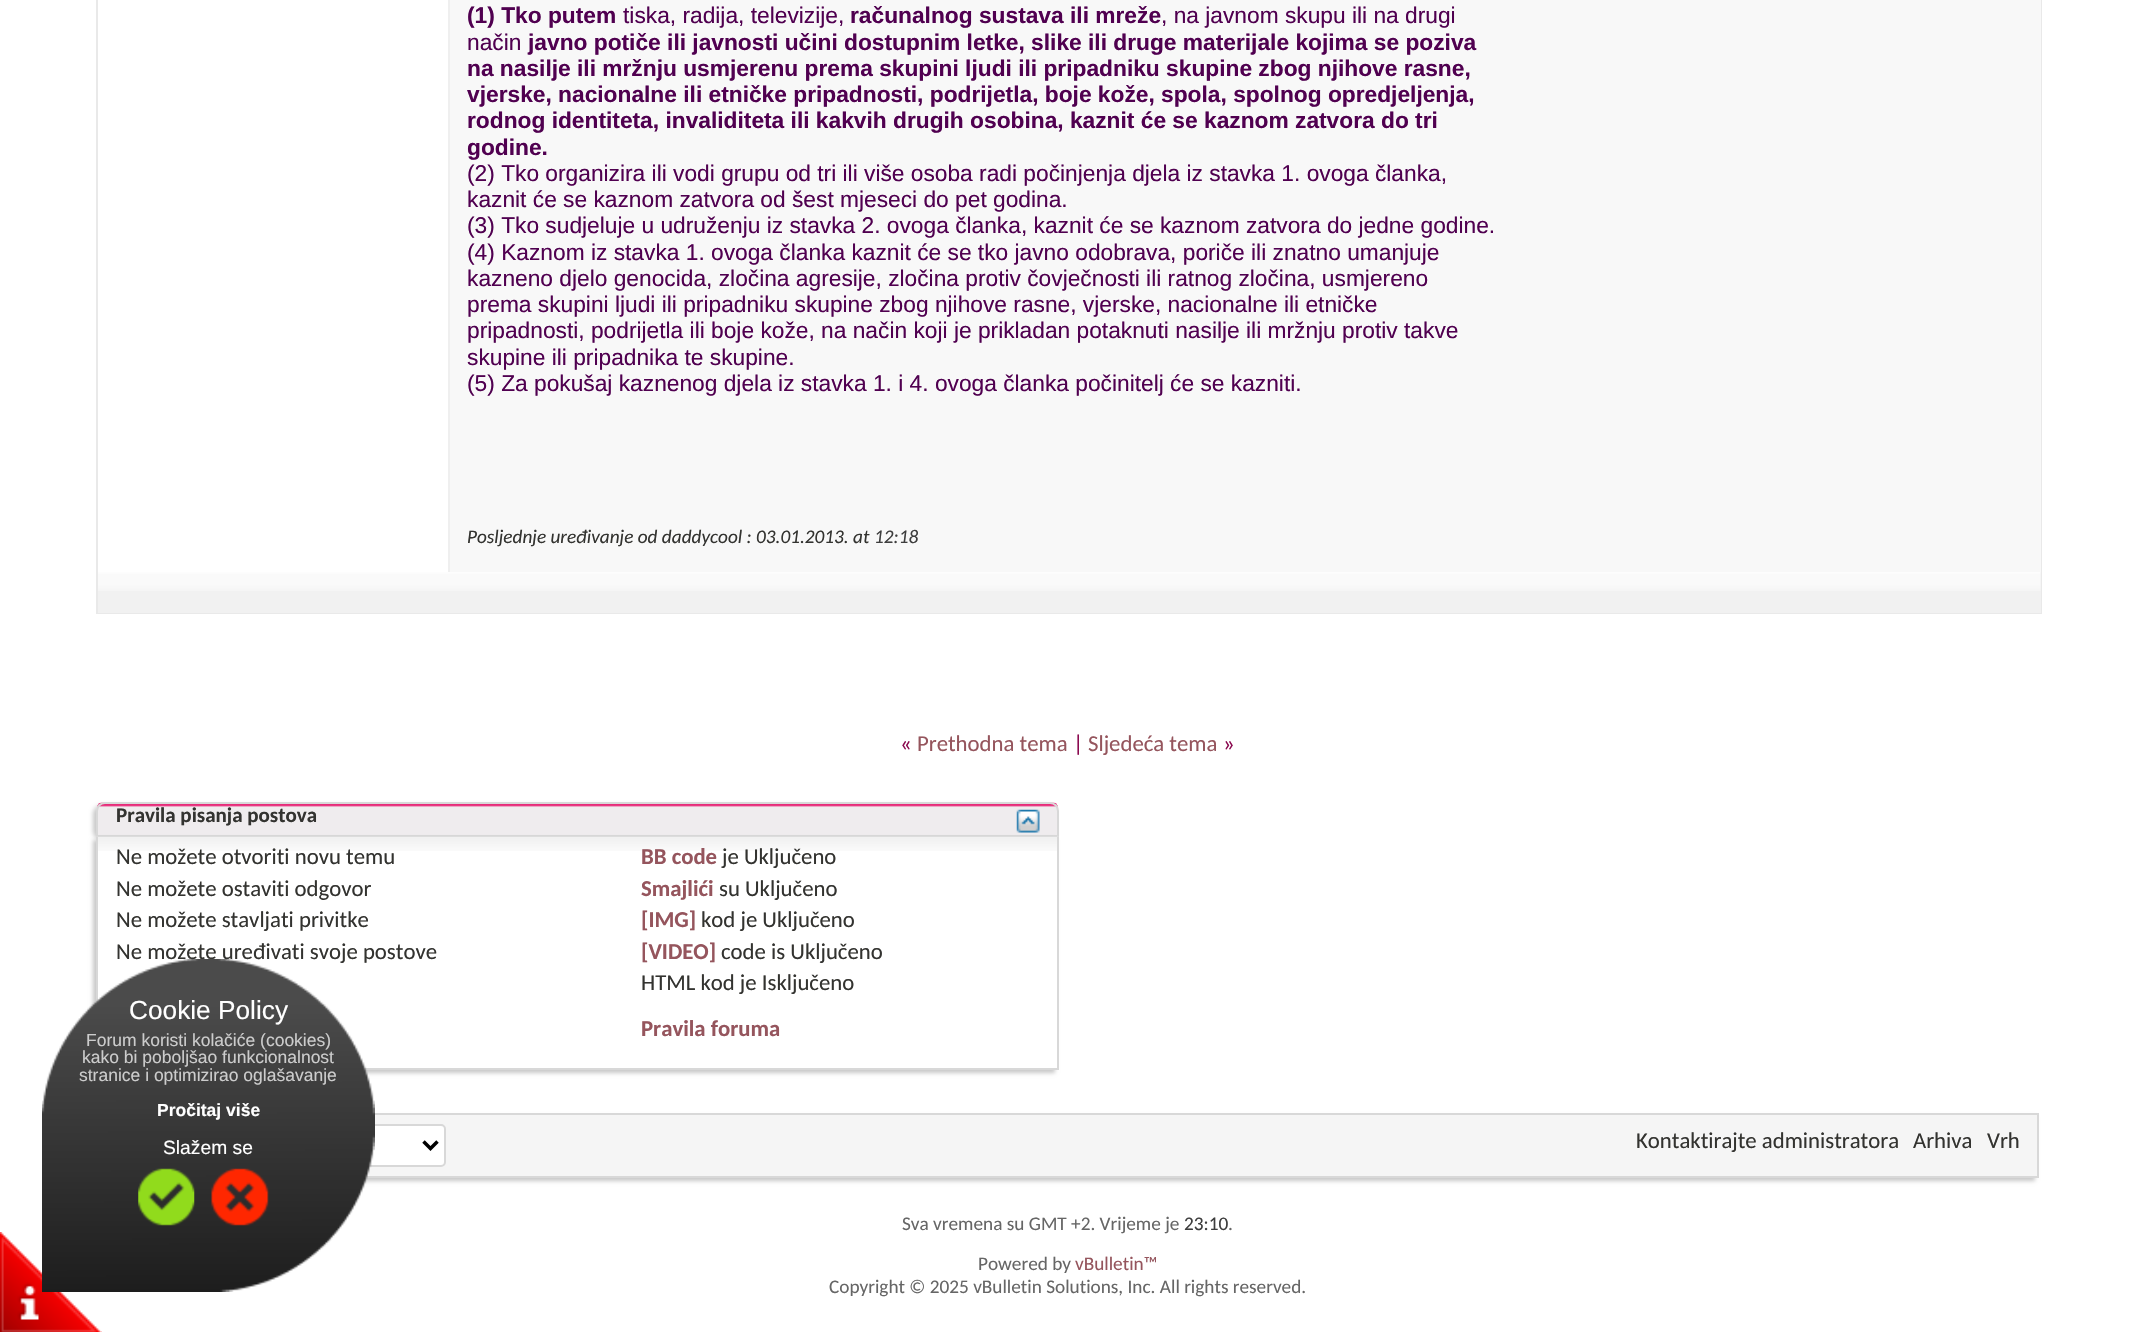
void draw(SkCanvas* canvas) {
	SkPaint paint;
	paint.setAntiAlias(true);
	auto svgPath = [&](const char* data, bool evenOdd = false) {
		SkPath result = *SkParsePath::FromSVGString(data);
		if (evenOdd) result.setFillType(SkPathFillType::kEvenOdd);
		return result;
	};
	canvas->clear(0xffffffff);
	paint.setStroke(true);
	paint.setStrokeWidth(2);
	paint.setColor(0xffe9e9e9);
	canvas->drawRect(SkRect::MakeXYWH(97, -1, 1944, 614), paint);
	paint.setStroke(false);
	paint.setColor(0xfff8f8f8);
	canvas->drawRect(SkRect::MakeXYWH(450, 0, 1591, 572), paint);
	paint.setColor(0xffefefef);
	canvas->drawRect(SkRect::MakeXYWH(448, 0, 2, 572), paint);
	SkFont f1(fontMgr->matchFamilyStyle("Liberation Sans", SkFontStyle::Bold()), 22.75);
	f1.setSubpixel(true);
	paint.setColor(0xff500050);
	canvas->drawString("(1) Tko putem", 467, 23, f1, paint);
	SkFont f2(fontMgr->matchFamilyStyle("Liberation Sans", SkFontStyle::Normal()), 22.75);
	f2.setSubpixel(true);
	canvas->drawString("tiska, radija, televizije,", 623, 23, f2, paint);
	canvas->drawString("računalnog sustava ili mreže", 850, 23, f1, paint);
	canvas->drawString(", na javnom skupu ili na drugi", 1161, 23, f2, paint);
	canvas->drawString("način", 467, 50, f2, paint);
	canvas->drawString("javno potiče ili javnosti učini dostupnim letke, slike ili druge materijale kojima se poziva", 528, 50, f1, paint);
	canvas->drawString("na nasilje ili mržnju usmjerenu prema skupini ljudi ili pripadniku skupine zbog njihove rasne,", 467, 76, f1, paint);
	canvas->drawString("vjerske, nacionalne ili etničke pripadnosti, podrijetla, boje kože, spola, spolnog opredjeljenja,", 467, 102, f1, paint);
	canvas->drawString("rodnog identiteta, invaliditeta ili kakvih drugih osobina, kaznit će se kaznom zatvora do tri", 467, 128, f1, paint);
	canvas->drawString("godine.", 467, 155, f1, paint);
	canvas->drawString("(2) Tko organizira ili vodi grupu od tri ili više osoba radi počinjenja djela iz stavka 1. ovoga članka,", 467, 181, f2, paint);
	canvas->drawString("kaznit će se kaznom zatvora od šest mjeseci do pet godina.", 467, 207, f2, paint);
	canvas->drawString("(3) Tko sudjeluje u udruženju iz stavka 2. ovoga članka, kaznit će se kaznom zatvora do jedne godine.", 467, 233, f2, paint);
	canvas->drawString("(4) Kaznom iz stavka 1. ovoga članka kaznit će se tko javno odobrava, poriče ili znatno umanjuje", 467, 260, f2, paint);
	canvas->drawString("kazneno djelo genocida, zločina agresije, zločina protiv čovječnosti ili ratnog zločina, usmjereno", 467, 286, f2, paint);
	canvas->drawString("prema skupini ljudi ili pripadniku skupine zbog njihove rasne, vjerske, nacionalne ili etničke", 467, 312, f2, paint);
	canvas->drawString("pripadnosti, podrijetla ili boje kože, na način koji je prikladan potaknuti nasilje ili mržnju protiv takve", 467, 338, f2, paint);
	canvas->drawString("skupine ili pripadnika te skupine.", 467, 365, f2, paint);
	canvas->drawString("(5) Za pokušaj kaznenog djela iz stavka 1. i 4. ovoga članka počinitelj će se kazniti.", 467, 391, f2, paint);
	SkFont f3(fontMgr->matchFamilyStyle("Carlito", SkFontStyle::Italic()), 19.25);
	f3.setSubpixel(true);
	paint.setColor(0xff333330);
	canvas->drawString("Posljednje uređivanje od daddycool : 03.01.2013. at", 467, 543, f3, paint);
	paint.setColor(0xff3e3e3e);
	canvas->drawString("12:18", 874, 543, f3, paint);
	paint.setColor(0xfff1f1f1);
	canvas->drawRect(SkRect::MakeXYWH(98, 572, 1943, 41), paint);
	canvas->drawImageRect(SkImages::DeferredFromEncodedData(SkData::MakeFromFileName("img1.png")), SkRect::MakeXYWH(98, 572, 1943, 19), SkSamplingOptions());
	SkFont f4(fontMgr->matchFamilyStyle("Carlito", SkFontStyle::Normal()), 22.75);
	f4.setSubpixel(true);
	paint.setColor(0xff8b0a50);
	canvas->drawString("«", 900, 751, f4, paint);
	paint.setColor(0xff95555d);
	canvas->drawString("Prethodna tema", 917, 751, f4, paint);
	paint.setColor(0xff8b0a50);
	canvas->drawString("|", 1073, 751, f4, paint);
	paint.setColor(0xff95555d);
	canvas->drawString("Sljedeća tema", 1088, 751, f4, paint);
	paint.setColor(0xff8b0a50);
	canvas->drawString("»", 1223, 751, f4, paint);
	paint.setColor(0xffc8c8c8);
	paint.setMaskFilter(SkMaskFilter::MakeBlur(kNormal_SkBlurStyle, 2));
	canvas->drawRoundRect(SkRect::MakeXYWH(93, 805, 962, 35), 9, 9, paint);
	paint.setMaskFilter(nullptr);
	canvas->drawImageRect(SkImages::DeferredFromEncodedData(SkData::MakeFromFileName("img2.png")), SkRect::MakeXYWH(96, 802, 963, 33), SkSamplingOptions());
	paint.setStroke(true);
	paint.setColor(0xffd8d8d8);
	canvas->drawPath(svgPath("M105 803H1050C1054.5 803 1058 806.5 1058 811V836H97V811C97 806.5 100.5 803 105 803Z"), paint);
	SkFont f5(fontMgr->matchFamilyStyle("Carlito", SkFontStyle::Bold()), 21);
	f5.setSubpixel(true);
	paint.setStroke(false);
	paint.setColor(0xff333330);
	canvas->drawString("Pravila pisanja postova", 116, 822, f5, paint);
	canvas->drawImageRect(SkImages::DeferredFromEncodedData(SkData::MakeFromFileName("img3.png")), SkRect::MakeXYWH(1016, 809, 24, 24), SkSamplingOptions());
	paint.setColor(0xffc8c8c8);
	paint.setMaskFilter(SkMaskFilter::MakeBlur(kNormal_SkBlurStyle, 2));
	canvas->drawRect(SkRect::MakeXYWH(93, 840, 962, 233), paint);
	paint.setMaskFilter(nullptr);
	paint.setColor(0xffffffff);
	canvas->drawRect(SkRect::MakeXYWH(98, 837, 959, 231), paint);
	canvas->drawImageRect(SkImages::DeferredFromEncodedData(SkData::MakeFromFileName("img4.png")), SkRect::MakeXYWH(96, 836, 963, 15), SkSamplingOptions());
	paint.setColor(0xffd8d8d8);
	canvas->drawRect(SkRect::MakeXYWH(1057, 837, 2, 232), paint);
	canvas->drawRect(SkRect::MakeXYWH(363, 1068, 696, 2), paint);
	canvas->drawRect(SkRect::MakeXYWH(96, 837, 2, 168), paint);
	paint.setColor(0xff333330);
	canvas->drawString("Ne možete otvoriti novu temu", 116, 864, f4, paint);
	canvas->drawString("Ne možete ostaviti odgovor", 116, 896, f4, paint);
	canvas->drawString("Ne možete stavljati privitke", 116, 927, f4, paint);
	canvas->drawString("Ne možete uređivati svoje postove", 116, 959, f4, paint);
	SkFont f6(fontMgr->matchFamilyStyle("Carlito", SkFontStyle::Bold()), 22.75);
	f6.setSubpixel(true);
	paint.setColor(0xff95555d);
	canvas->drawString("BB code", 641, 864, f6, paint);
	paint.setColor(0xff333330);
	canvas->drawString("je Uključeno", 722, 864, f4, paint);
	paint.setColor(0xff95555d);
	canvas->drawString("Smajlići", 641, 896, f6, paint);
	paint.setColor(0xff333330);
	canvas->drawString("su Uključeno", 719, 896, f4, paint);
	paint.setColor(0xff95555d);
	canvas->drawString("[IMG]", 641, 927, f6, paint);
	paint.setColor(0xff333330);
	canvas->drawString("kod je Uključeno", 701, 927, f4, paint);
	paint.setColor(0xff95555d);
	canvas->drawString("[VIDEO]", 641, 959, f6, paint);
	paint.setColor(0xff333330);
	canvas->drawString("code is Uključeno", 721, 959, f4, paint);
	canvas->drawString("HTML kod je Isključeno", 641, 990, f4, paint);
	paint.setColor(0xff95555d);
	canvas->drawString("Pravila foruma", 641, 1036, f6, paint);
	paint.setColor(0xffc8c8c8);
	paint.setMaskFilter(SkMaskFilter::MakeBlur(kNormal_SkBlurStyle, 2));
	canvas->drawRect(SkRect::MakeXYWH(93, 1117, 1942, 64), paint);
	paint.setMaskFilter(nullptr);
	paint.setColor(0xfff5f5f5);
	canvas->drawRect(SkRect::MakeXYWH(365, 1115, 1672, 61), paint);
	paint.setStroke(true);
	paint.setColor(0xffd8d8d8);
	canvas->drawRect(SkRect::MakeXYWH(97, 1114, 1941, 63), paint);
	paint.setStroke(false);
	paint.setColor(0xffffffff);
	canvas->drawRoundRect(SkRect::MakeXYWH(269, 1125, 176, 41), 4, 4, paint);
	paint.setStroke(true);
	paint.setColor(0xffd8d8d8);
	canvas->drawRoundRect(SkRect::MakeXYWH(269, 1125, 176, 41), 4, 4, paint);
	paint.setStrokeWidth(3.5);
	paint.setColor(0xff000000);
	canvas->drawPath(svgPath("M423.5 1141.5L430.5 1148.5L437.5 1141.5"), paint);
	paint.setStroke(false);
	paint.setColor(0xff333330);
	canvas->drawString("Kontaktirajte administratora", 1636, 1148, f4, paint);
	canvas->drawString("Arhiva", 1913, 1148, f4, paint);
	canvas->drawString("Vrh", 1987, 1148, f4, paint);
	canvas->drawImageRect(SkImages::DeferredFromEncodedData(SkData::MakeFromFileName("img8.png")), SkRect::MakeXYWH(0, 1232, 102, 100), SkSamplingOptions());
	canvas->drawImageRect(SkImages::DeferredFromEncodedData(SkData::MakeFromFileName("img5.png")), SkRect::MakeXYWH(42, 959, 333, 333), SkSamplingOptions());
	SkFont f7(fontMgr->matchFamilyStyle("Liberation Sans", SkFontStyle::Normal()), 26.25);
	f7.setSubpixel(true);
	paint.setColor(0xffffffff);
	canvas->drawString("Cookie Policy", 129, 1019, f7, paint);
	SkFont f8(fontMgr->matchFamilyStyle("Liberation Sans", SkFontStyle::Normal()), 17.5);
	f8.setSubpixel(true);
	paint.setColor(0xffcccccc);
	canvas->drawString("Forum koristi kolačiće (cookies)", 86, 1046, f8, paint);
	canvas->drawString("kako bi poboljšao funkcionalnost", 82, 1063, f8, paint);
	canvas->drawString("stranice i optimizirao oglašavanje", 79, 1081, f8, paint);
	SkFont f9(fontMgr->matchFamilyStyle("Liberation Sans", SkFontStyle::Bold()), 17.5);
	f9.setSubpixel(true);
	paint.setColor(0xffffffff);
	canvas->drawString("Pročitaj više", 157, 1116, f9, paint);
	SkFont f10(fontMgr->matchFamilyStyle("Liberation Sans", SkFontStyle::Normal()), 19.25);
	f10.setSubpixel(true);
	canvas->drawString("Slažem se", 163, 1154, f10, paint);
	canvas->drawImageRect(SkImages::DeferredFromEncodedData(SkData::MakeFromFileName("img6.png")), SkRect::MakeXYWH(138, 1168, 57, 58), SkSamplingOptions());
	canvas->drawImageRect(SkImages::DeferredFromEncodedData(SkData::MakeFromFileName("img7.png")), SkRect::MakeXYWH(211, 1168, 58, 58), SkSamplingOptions());
	SkFont f11(fontMgr->matchFamilyStyle("Carlito", SkFontStyle::Normal()), 19.25);
	f11.setSubpixel(true);
	paint.setColor(0xff666666);
	canvas->drawString("Sva vremena su GMT +2. Vrijeme je", 902, 1230, f11, paint);
	paint.setColor(0xff3e3e3e);
	canvas->drawString("23:10", 1184, 1230, f11, paint);
	paint.setColor(0xff666666);
	canvas->drawString(".", 1228, 1230, f11, paint);
	canvas->drawString("Powered by", 978, 1270, f11, paint);
	paint.setColor(0xff95555d);
	canvas->drawString("vBulletin™", 1075, 1270, f11, paint);
	paint.setColor(0xff666666);
	canvas->drawString("Copyright © 2025 vBulletin Solutions, Inc. All rights reserved.", 829, 1293, f11, paint);
}
